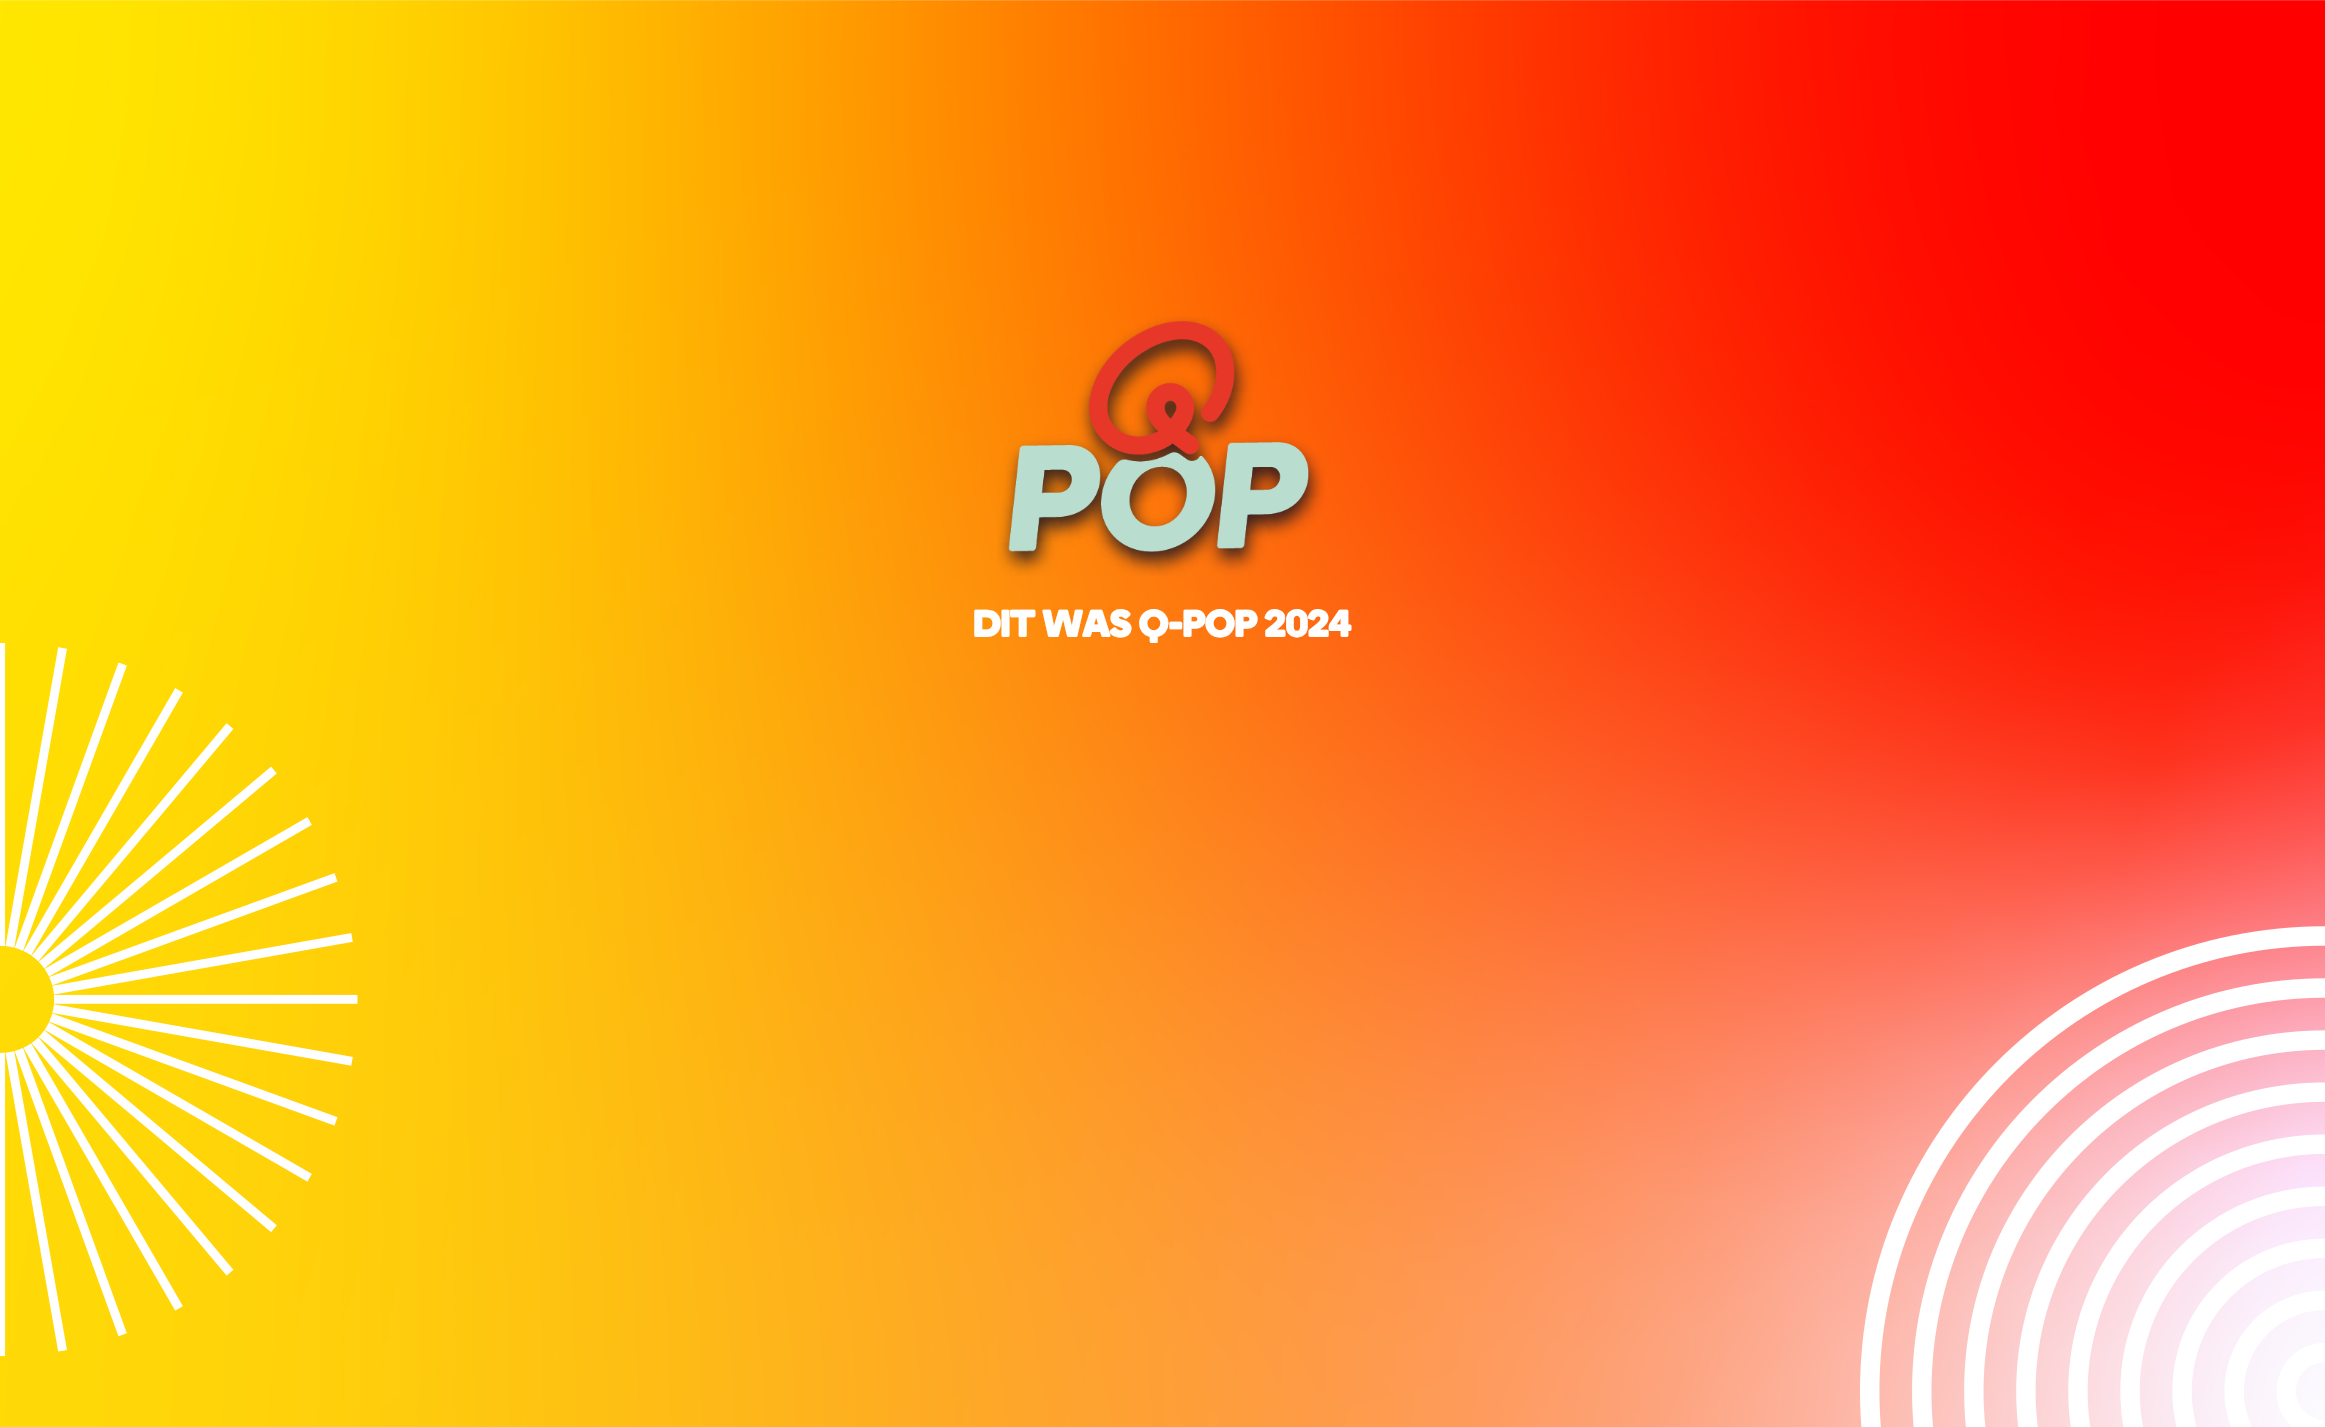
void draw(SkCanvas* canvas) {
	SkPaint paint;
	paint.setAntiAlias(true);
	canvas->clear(0xffffffff);
	canvas->drawImageRect(SkImages::DeferredFromEncodedData(SkData::MakeFromFileName("img1.png")), SkRect::MakeXYWH(0, 0, 2325, 1427), SkSamplingOptions());
	canvas->drawImageRect(SkImages::DeferredFromEncodedData(SkData::MakeFromFileName("img2.png")), SkRect::MakeXYWH(997, 316, 328, 260), SkSamplingOptions());
	SkFont f1(fontMgr->matchFamilyStyle("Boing", SkFontStyle::Bold()), 37.5);
	f1.setSubpixel(true);
	paint.setColor(0xffffffff);
	canvas->drawString("DIT WAS Q-POP 2024", 973, 637, f1, paint);
	canvas->drawImageRect(SkImages::DeferredFromEncodedData(SkData::MakeFromFileName("img3.png")), SkRect::MakeXYWH(0, 643, 358, 713), SkSamplingOptions());
	canvas->drawImageRect(SkImages::DeferredFromEncodedData(SkData::MakeFromFileName("img4.png")), SkRect::MakeXYWH(1860, 926, 465, 501), SkSamplingOptions());
}
